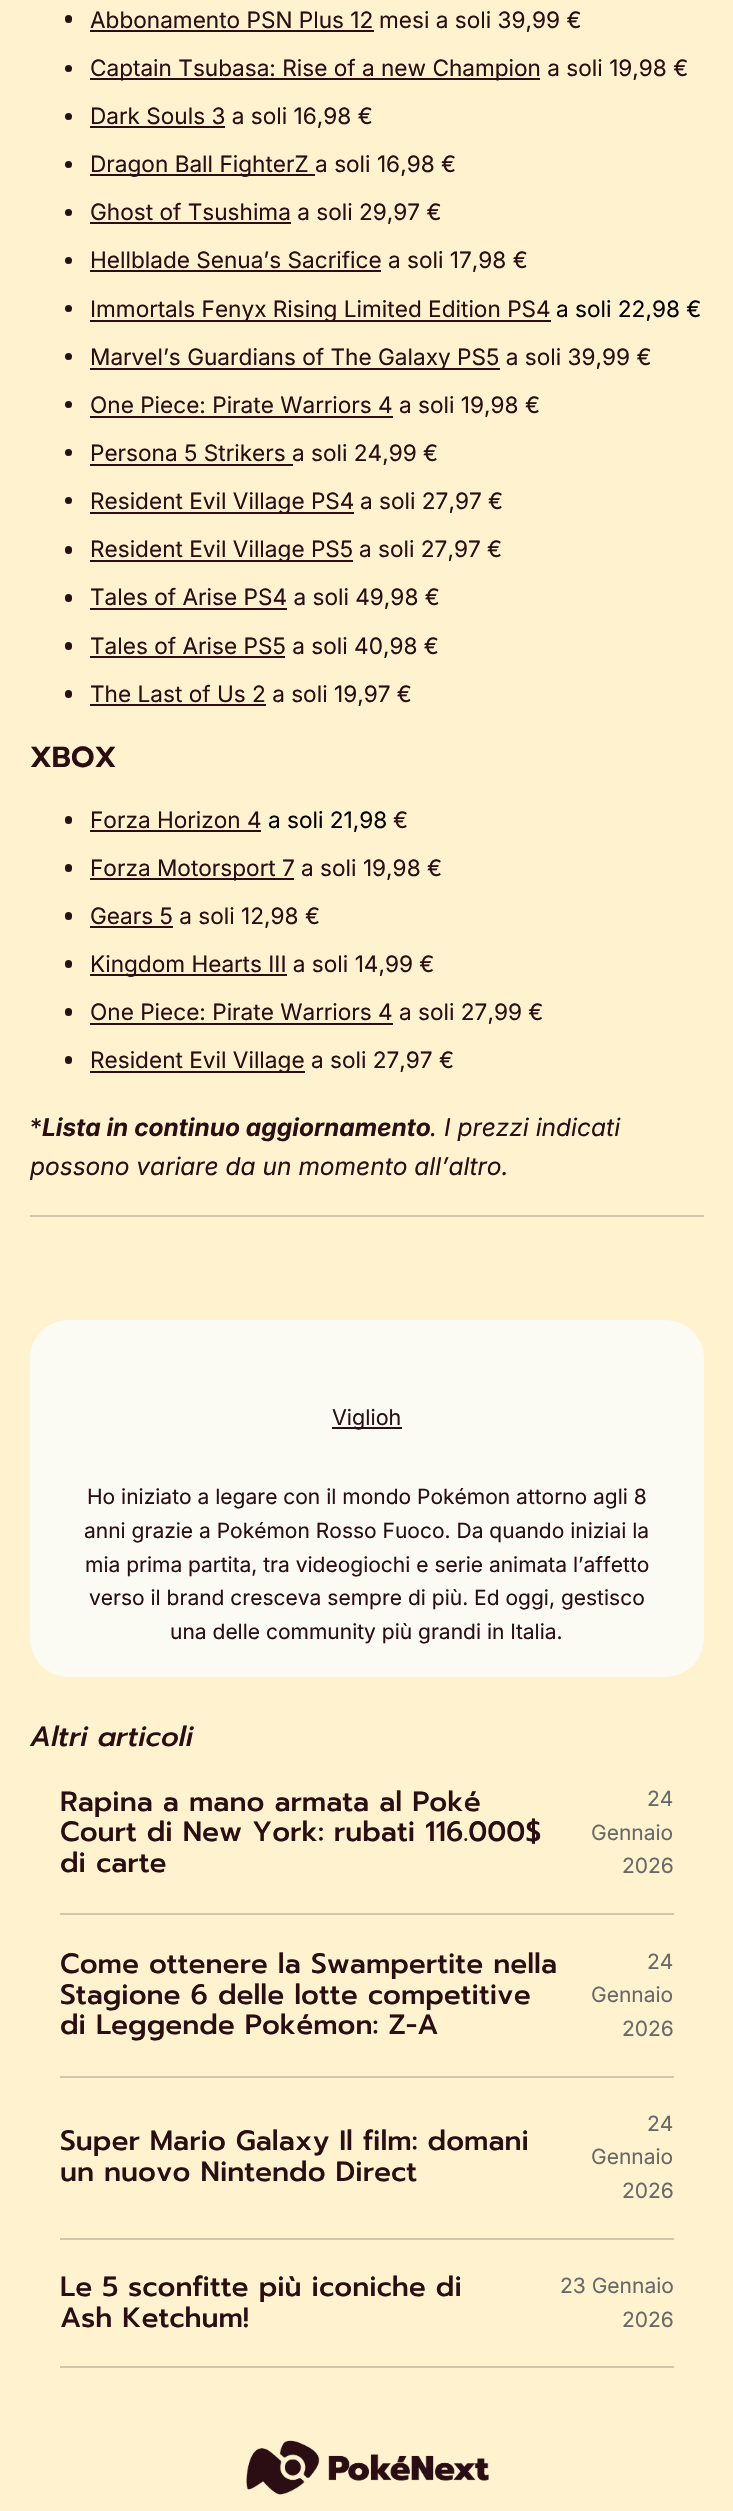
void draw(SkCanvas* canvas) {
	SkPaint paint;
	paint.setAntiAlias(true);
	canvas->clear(0xfffff2cf);
	paint.setColor(0xff2a0e13);
	canvas->drawRoundRect(SkRect::MakeXYWH(65, 15, 7, 8), 3.5, 3.5, paint);
	SkFont f1(fontMgr->matchFamilyStyle("Inter", SkFontStyle::Normal()), 22.6);
	f1.setSubpixel(true);
	canvas->drawString("Abbonamento PSN Plus 12", 90, 28, f1, paint);
	canvas->drawRect(SkRect::MakeXYWH(90, 30, 284, 2), paint);
	canvas->drawString("mesi a soli 39,99 €", 379, 28, f1, paint);
	canvas->drawCircle(68.5, 68.5, 3.5, paint);
	canvas->drawRect(SkRect::MakeXYWH(90, 78, 450, 2), paint);
	canvas->drawString("Captain Tsubasa: Rise of a new Champion a soli 19,98 €", 90, 76, f1, paint);
	canvas->drawCircle(68.5, 116.5, 3.5, paint);
	canvas->drawRect(SkRect::MakeXYWH(90, 126, 135, 2), paint);
	canvas->drawString("Dark Souls 3 a soli 16,98 €", 90, 124, f1, paint);
	canvas->drawCircle(68.5, 164.5, 3.5, paint);
	canvas->drawRect(SkRect::MakeXYWH(90, 174, 225, 2), paint);
	canvas->drawString("Dragon Ball FighterZ a soli 16,98 €", 90, 172, f1, paint);
	canvas->drawCircle(68.5, 212.5, 3.5, paint);
	canvas->drawRect(SkRect::MakeXYWH(90, 222, 201, 2), paint);
	canvas->drawString("Ghost of Tsushima a soli 29,97 €", 90, 220, f1, paint);
	canvas->drawCircle(68.5, 260.5, 3.5, paint);
	canvas->drawString("Hellblade Senua’s Sacrifice", 90, 268, f1, paint);
	canvas->drawRect(SkRect::MakeXYWH(90, 270, 291, 2), paint);
	canvas->drawString("a soli 17,98 €", 388, 268, f1, paint);
	canvas->drawCircle(68.5, 308.5, 3.5, paint);
	canvas->drawRect(SkRect::MakeXYWH(90, 320, 461, 2), paint);
	canvas->drawString("Immortals Fenyx Rising Limited Edition PS4", 90, 317, f1, paint);
	paint.setColor(0xff000000);
	canvas->drawString("a soli 22,98 €", 556, 317, f1, paint);
	paint.setColor(0xff2a0e13);
	canvas->drawCircle(68.5, 356.5, 3.5, paint);
	canvas->drawRect(SkRect::MakeXYWH(90, 368, 410, 2), paint);
	canvas->drawString("Marvel’s Guardians of The Galaxy PS5 a soli 39,99 €", 90, 365, f1, paint);
	canvas->drawCircle(68.5, 404.5, 3.5, paint);
	canvas->drawString("One Piece: Pirate Warriors 4", 90, 413, f1, paint);
	canvas->drawRect(SkRect::MakeXYWH(90, 416, 303, 2), paint);
	canvas->drawString("a soli 19,98 €", 399, 413, f1, paint);
	canvas->drawCircle(68.5, 452.5, 3.5, paint);
	canvas->drawRect(SkRect::MakeXYWH(90, 464, 203, 2), paint);
	canvas->drawString("Persona 5 Strikers a soli 24,99 €", 90, 461, f1, paint);
	canvas->drawCircle(68.5, 500.5, 3.5, paint);
	canvas->drawRect(SkRect::MakeXYWH(90, 512, 264, 2), paint);
	canvas->drawString("Resident Evil Village PS4", 90, 509, f1, paint);
	canvas->drawString("a soli 27,97 €", 360, 509, f1, paint);
	canvas->drawRoundRect(SkRect::MakeXYWH(65, 546, 7, 8), 3.5, 3.5, paint);
	canvas->drawRect(SkRect::MakeXYWH(90, 560, 263, 2), paint);
	canvas->drawString("Resident Evil Village PS5", 90, 557, f1, paint);
	canvas->drawString("a soli 27,97 €", 359, 557, f1, paint);
	canvas->drawRoundRect(SkRect::MakeXYWH(65, 594, 7, 8), 3.5, 3.5, paint);
	canvas->drawRect(SkRect::MakeXYWH(90, 608, 197, 2), paint);
	canvas->drawString("Tales of Arise PS4 a soli 49,98 €", 90, 605, f1, paint);
	canvas->drawRoundRect(SkRect::MakeXYWH(65, 642, 7, 8), 3.5, 3.5, paint);
	canvas->drawRect(SkRect::MakeXYWH(90, 656, 195, 2), paint);
	canvas->drawString("Tales of Arise PS5 a soli 40,98 €", 90, 654, f1, paint);
	canvas->drawRoundRect(SkRect::MakeXYWH(65, 690, 7, 8), 3.5, 3.5, paint);
	canvas->drawRect(SkRect::MakeXYWH(90, 704, 176, 2), paint);
	canvas->drawString("The Last of Us 2 a soli 19,97 €", 90, 702, f1, paint);
	SkFont f2(fontMgr->matchFamilyStyle("Prompt", SkFontStyle(600, SkFontStyle::kNormal_Width, SkFontStyle::kUpright_Slant)), 29);
	f2.setSubpixel(true);
	canvas->drawString("XBOX", 30, 767, f2, paint);
	canvas->drawRoundRect(SkRect::MakeXYWH(65, 816, 7, 8), 3.5, 3.5, paint);
	canvas->drawString("Forza Horizon 4", 90, 828, f1, paint);
	canvas->drawRect(SkRect::MakeXYWH(90, 830, 171, 2), paint);
	paint.setColor(0xff000000);
	canvas->drawString("a soli 21,98", 268, 828, f1, paint);
	paint.setColor(0xff2a0e13);
	canvas->drawString("€", 393, 828, f1, paint);
	canvas->drawRoundRect(SkRect::MakeXYWH(65, 864, 7, 8), 3.5, 3.5, paint);
	canvas->drawRect(SkRect::MakeXYWH(90, 878, 204, 2), paint);
	canvas->drawString("Forza Motorsport 7 a soli 19,98 €", 90, 876, f1, paint);
	canvas->drawRoundRect(SkRect::MakeXYWH(65, 912, 7, 8), 3.5, 3.5, paint);
	canvas->drawRect(SkRect::MakeXYWH(90, 926, 83, 2), paint);
	canvas->drawString("Gears 5 a soli 12,98 €", 90, 924, f1, paint);
	canvas->drawRoundRect(SkRect::MakeXYWH(65, 960, 7, 8), 3.5, 3.5, paint);
	canvas->drawRect(SkRect::MakeXYWH(90, 974, 197, 2), paint);
	canvas->drawString("Kingdom Hearts III a soli 14,99 €", 90, 972, f1, paint);
	canvas->drawRoundRect(SkRect::MakeXYWH(65, 1008, 7, 8), 3.5, 3.5, paint);
	canvas->drawString("One Piece: Pirate Warriors 4", 90, 1020, f1, paint);
	canvas->drawRect(SkRect::MakeXYWH(90, 1023, 303, 2), paint);
	canvas->drawString("a soli 27,99 €", 399, 1020, f1, paint);
	canvas->drawRoundRect(SkRect::MakeXYWH(65, 1056, 7, 8), 3.5, 3.5, paint);
	canvas->drawRect(SkRect::MakeXYWH(90, 1071, 215, 2), paint);
	canvas->drawString("Resident Evil Village a soli 27,97 €", 90, 1068, f1, paint);
	SkFont f3(fontMgr->matchFamilyStyle("Inter", SkFontStyle::Normal()), 24.5);
	f3.setSubpixel(true);
	canvas->drawString("*", 30, 1136, f3, paint);
	SkFont f4(fontMgr->matchFamilyStyle("Inter", SkFontStyle::BoldItalic()), 24.5);
	f4.setSubpixel(true);
	canvas->drawString("Lista in continuo aggiornamento", 42, 1136, f4, paint);
	SkFont f5(fontMgr->matchFamilyStyle("Inter", SkFontStyle::Italic()), 24.5);
	f5.setSubpixel(true);
	canvas->drawString(". I prezzi indicati", 430, 1136, f5, paint);
	canvas->drawString("possono variare da un momento all’altro.", 30, 1175, f5, paint);
	paint.setColor(0xffd4c4a9);
	canvas->drawRect(SkRect::MakeXYWH(30, 1215, 674, 2), paint);
	paint.setColor(0xfffbfaf3);
	canvas->drawRoundRect(SkRect::MakeXYWH(30, 1320, 674, 357), 38, 38, paint);
	paint.setColor(0xff2a0e13);
	canvas->drawRect(SkRect::MakeXYWH(332, 1427, 70, 2), paint);
	SkFont f6(fontMgr->matchFamilyStyle("Inter", SkFontStyle::Normal()), 21.5);
	f6.setSubpixel(true);
	canvas->drawString("Viglioh", 332, 1425, f6, paint);
	SkFont f7(fontMgr->matchFamilyStyle("Inter", SkFontStyle::Normal()), 21);
	f7.setSubpixel(true);
	canvas->drawString("Ho iniziato a legare con il mondo Pokémon attorno agli 8", 87, 1504, f7, paint);
	canvas->drawString("anni grazie a Pokémon Rosso Fuoco. Da quando iniziai la", 84, 1538, f7, paint);
	canvas->drawString("mia prima partita, tra videogiochi e serie animata l’affetto", 85, 1572, f7, paint);
	canvas->drawString("verso il brand cresceva sempre di più. Ed oggi, gestisco", 89, 1605, f7, paint);
	canvas->drawString("una delle community più grandi in Italia.", 170, 1639, f7, paint);
	SkFont f8(fontMgr->matchFamilyStyle("Prompt", SkFontStyle(500, SkFontStyle::kNormal_Width, SkFontStyle::kItalic_Slant)), 27.9);
	f8.setSubpixel(true);
	canvas->drawString("Altri articoli", 30, 1746, f8, paint);
	paint.setColor(0xffd4c4a9);
	canvas->drawRect(SkRect::MakeXYWH(60, 1913, 614, 2), paint);
	SkFont f9(fontMgr->matchFamilyStyle("Prompt", SkFontStyle(500, SkFontStyle::kNormal_Width, SkFontStyle::kUpright_Slant)), 27.9);
	f9.setSubpixel(true);
	paint.setColor(0xff2a0e13);
	canvas->drawString("Rapina a mano armata al Poké", 60, 1811, f9, paint);
	canvas->drawString("Court di New York: rubati 116.000$", 60, 1841, f9, paint);
	canvas->drawString("di carte", 60, 1872, f9, paint);
	paint.setColor(0xff686868);
	canvas->drawString("24", 647, 1806, f7, paint);
	canvas->drawString("Gennaio", 591, 1840, f7, paint);
	canvas->drawString("2026", 622, 1873, f7, paint);
	paint.setColor(0xffd4c4a9);
	canvas->drawRect(SkRect::MakeXYWH(60, 2076, 614, 2), paint);
	paint.setColor(0xff2a0e13);
	canvas->drawString("Come ottenere la Swampertite nella", 60, 1973, f9, paint);
	canvas->drawString("Stagione 6 delle lotte competitive", 60, 2004, f9, paint);
	canvas->drawString("di Leggende Pokémon: Z-A", 60, 2034, f9, paint);
	paint.setColor(0xff686868);
	canvas->drawString("24", 647, 1969, f7, paint);
	canvas->drawString("Gennaio", 591, 2002, f7, paint);
	canvas->drawString("2026", 622, 2036, f7, paint);
	paint.setColor(0xffd4c4a9);
	canvas->drawRect(SkRect::MakeXYWH(60, 2238, 614, 2), paint);
	paint.setColor(0xff2a0e13);
	canvas->drawString("Super Mario Galaxy Il film: domani", 60, 2150, f9, paint);
	canvas->drawString("un nuovo Nintendo Direct", 60, 2181, f9, paint);
	paint.setColor(0xff686868);
	canvas->drawString("24", 647, 2131, f7, paint);
	canvas->drawString("Gennaio", 591, 2164, f7, paint);
	canvas->drawString("2026", 622, 2198, f7, paint);
	paint.setColor(0xffd4c4a9);
	canvas->drawRect(SkRect::MakeXYWH(60, 2366, 614, 2), paint);
	paint.setColor(0xff2a0e13);
	canvas->drawString("Le 5 sconfitte più iconiche di", 60, 2296, f9, paint);
	canvas->drawString("Ash Ketchum!", 60, 2327, f9, paint);
	paint.setColor(0xff686868);
	canvas->drawString("23 Gennaio", 560, 2293, f7, paint);
	canvas->drawString("2026", 622, 2327, f7, paint);
	canvas->drawImageRect(SkImages::DeferredFromEncodedData(SkData::MakeFromFileName("img1.png")), SkRect::MakeXYWH(246, 2440, 243, 55), SkSamplingOptions());
}
